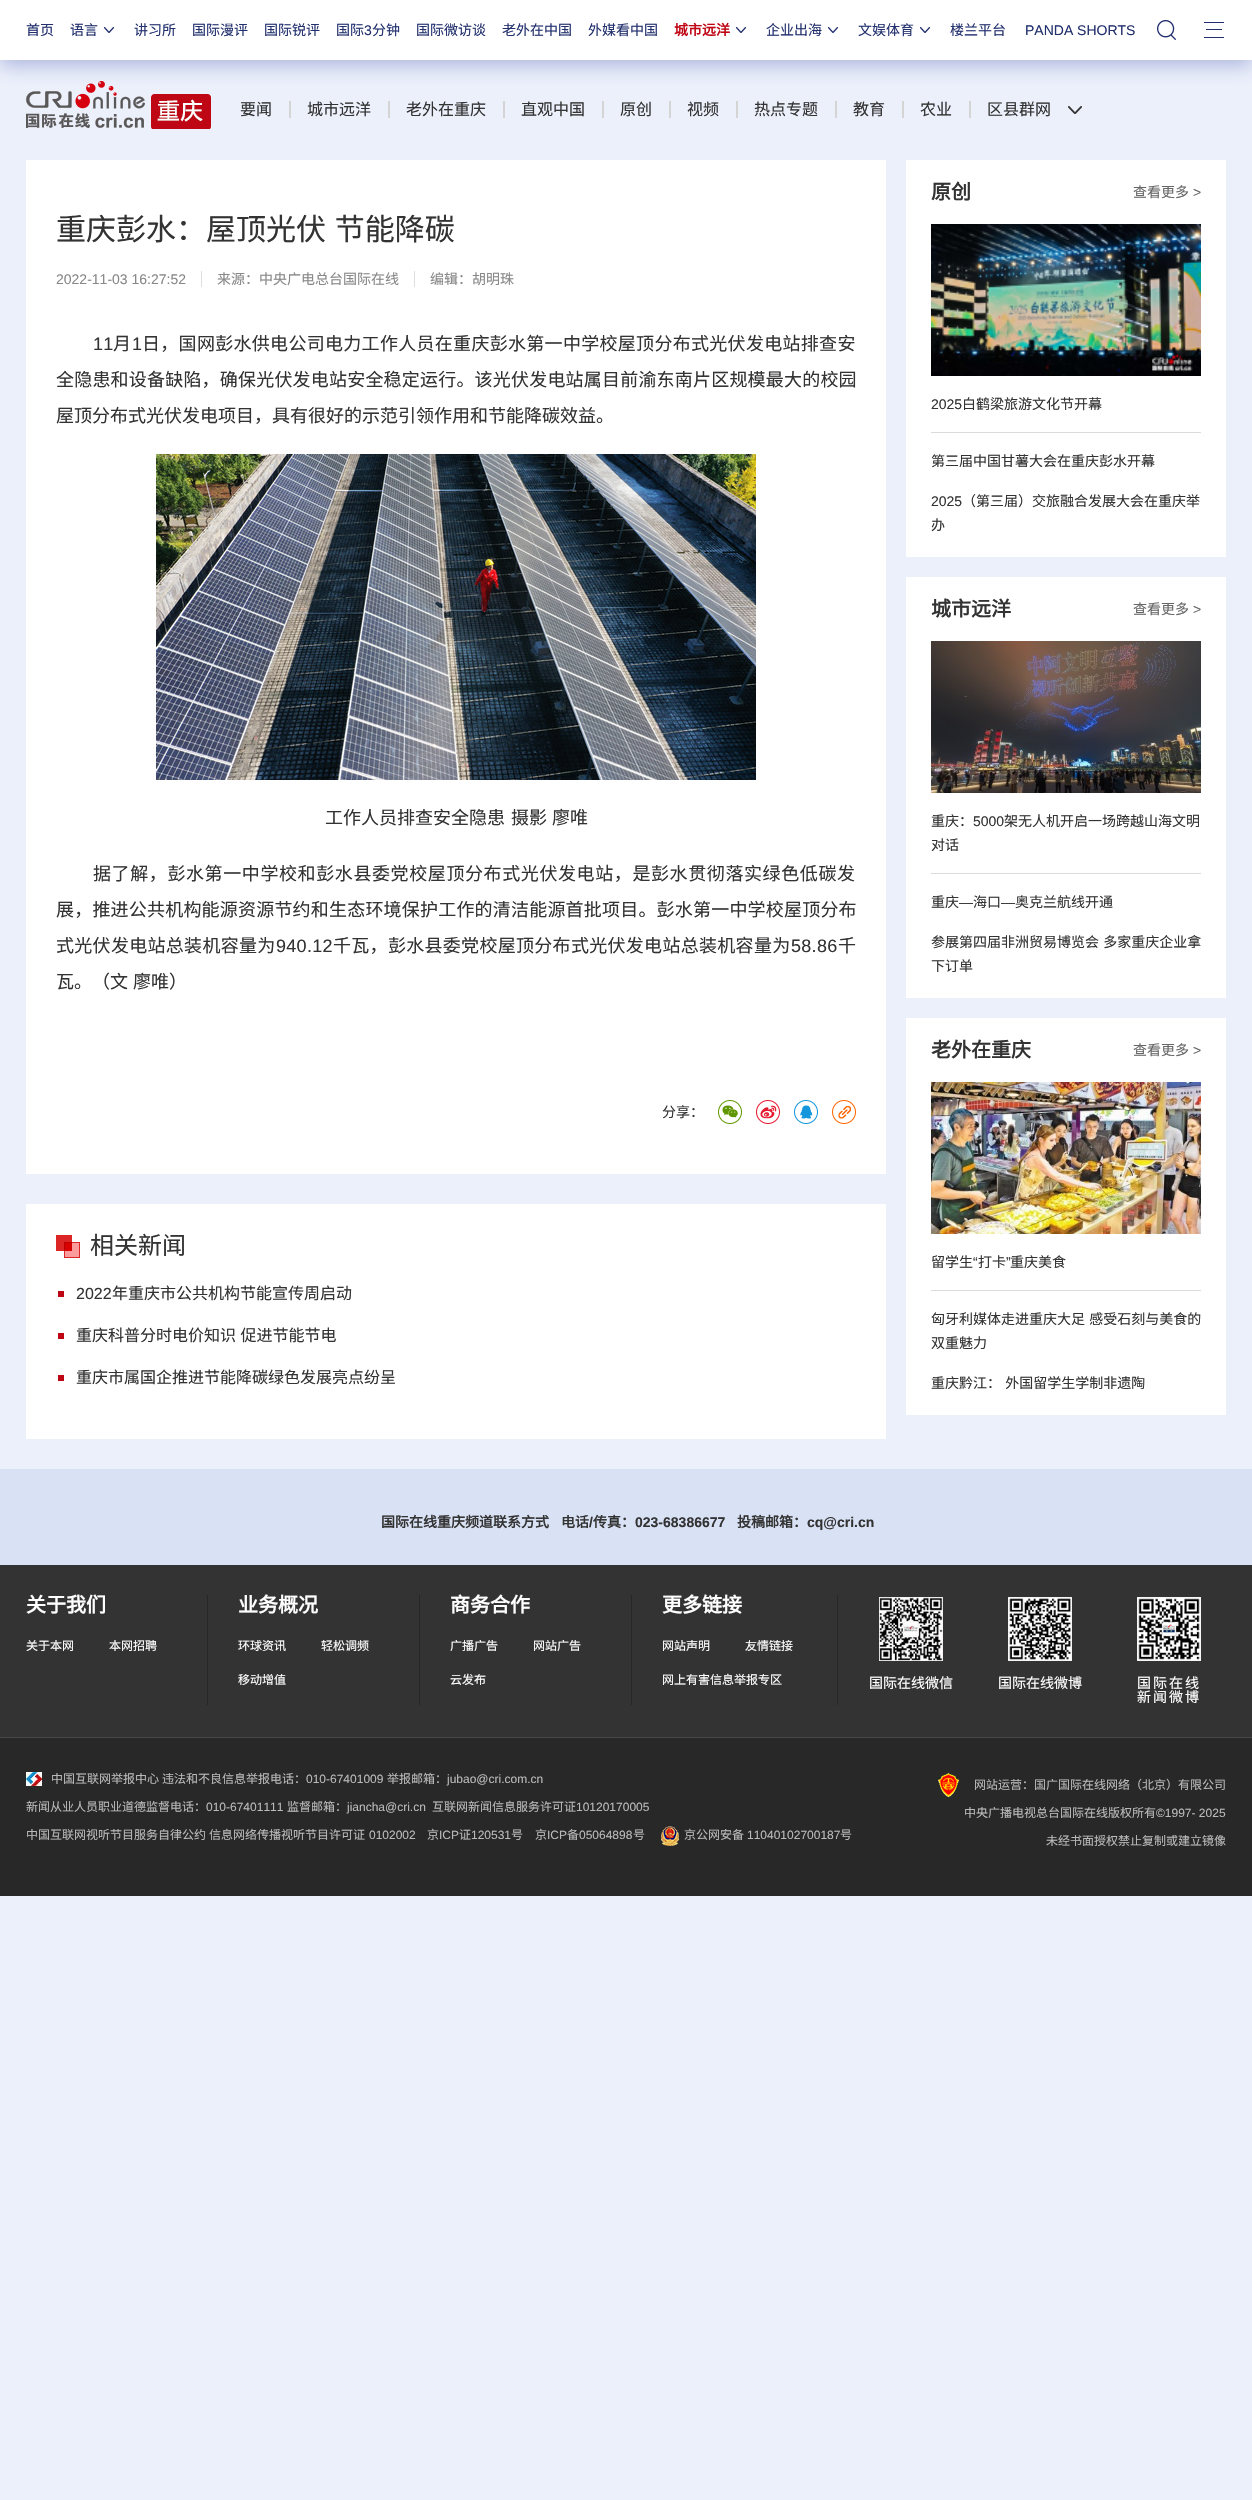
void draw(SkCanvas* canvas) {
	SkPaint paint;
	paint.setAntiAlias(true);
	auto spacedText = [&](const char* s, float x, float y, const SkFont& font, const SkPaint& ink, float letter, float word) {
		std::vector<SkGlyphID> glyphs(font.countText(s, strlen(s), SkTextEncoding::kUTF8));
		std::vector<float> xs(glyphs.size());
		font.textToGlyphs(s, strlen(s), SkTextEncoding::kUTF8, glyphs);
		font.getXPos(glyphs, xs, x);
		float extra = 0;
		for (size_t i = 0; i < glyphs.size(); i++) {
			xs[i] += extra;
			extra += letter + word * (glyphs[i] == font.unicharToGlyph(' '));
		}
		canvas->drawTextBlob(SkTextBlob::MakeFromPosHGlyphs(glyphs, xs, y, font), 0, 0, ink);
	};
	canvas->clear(0xffecf0fb);
	canvas->drawImageRect(SkImages::DeferredFromEncodedData(SkData::MakeFromFileName("img4.png")), SkRect::MakeXYWH(26, 81, 185, 48), SkSamplingOptions());
	paint.setColor(0x664356aa);
	paint.setMaskFilter(SkMaskFilter::MakeBlur(kNormal_SkBlurStyle, 10));
	canvas->drawRect(SkRect::MakeXYWH(0, 5, 1252, 60), paint);
	paint.setMaskFilter(nullptr);
	paint.setColor(0xffffffff);
	canvas->drawRect(SkRect::MakeXYWH(0, 0, 1252, 60), paint);
	SkFont f1(fontMgr->matchFamilyStyle("Noto Sans CJK SC", SkFontStyle::Normal()), 14);
	f1.setSubpixel(true);
	paint.setColor(0xff22306d);
	canvas->drawString("首页", 26, 35, f1, paint);
	canvas->drawString("语言", 70, 35, f1, paint);
	canvas->drawImageRect(SkImages::DeferredFromEncodedData(SkData::MakeFromFileName("img1.png")), SkRect::MakeXYWH(104, 27, 10, 6), SkSamplingOptions());
	canvas->drawString("讲习所", 134, 35, f1, paint);
	canvas->drawString("国际漫评", 192, 35, f1, paint);
	canvas->drawString("国际锐评", 264, 35, f1, paint);
	canvas->drawString("国际", 336, 35, f1, paint);
	SkFont f2(fontMgr->matchFamilyStyle("Liberation Sans", SkFontStyle::Normal()), 14);
	f2.setSubpixel(true);
	canvas->drawString("3", 364, 35, f2, paint);
	canvas->drawString("分钟", 372, 35, f1, paint);
	canvas->drawString("国际微访谈", 416, 35, f1, paint);
	canvas->drawString("老外在中国", 502, 35, f1, paint);
	canvas->drawString("外媒看中国", 588, 35, f1, paint);
	SkFont f3(fontMgr->matchFamilyStyle("Noto Sans CJK SC", SkFontStyle::Bold()), 14);
	f3.setSubpixel(true);
	paint.setColor(0xffbf0614);
	canvas->drawString("城市远洋", 674, 35, f3, paint);
	canvas->drawImageRect(SkImages::DeferredFromEncodedData(SkData::MakeFromFileName("img1.png")), SkRect::MakeXYWH(736, 27, 10, 6), SkSamplingOptions());
	paint.setColor(0xff22306d);
	canvas->drawString("企业出海", 766, 35, f1, paint);
	canvas->drawImageRect(SkImages::DeferredFromEncodedData(SkData::MakeFromFileName("img1.png")), SkRect::MakeXYWH(828, 27, 10, 6), SkSamplingOptions());
	canvas->drawString("文娱体育", 858, 35, f1, paint);
	canvas->drawImageRect(SkImages::DeferredFromEncodedData(SkData::MakeFromFileName("img1.png")), SkRect::MakeXYWH(920, 27, 10, 6), SkSamplingOptions());
	canvas->drawString("楼兰平台", 950, 35, f1, paint);
	canvas->drawString("PANDA SHORTS", 1025, 35, f2, paint);
	canvas->drawImageRect(SkImages::DeferredFromEncodedData(SkData::MakeFromFileName("img2.png")), SkRect::MakeXYWH(1157, 20, 19, 20), SkSamplingOptions());
	canvas->drawImageRect(SkImages::DeferredFromEncodedData(SkData::MakeFromFileName("img3.png")), SkRect::MakeXYWH(1204, 22, 20, 16), SkSamplingOptions());
	SkFont f4(fontMgr->matchFamilyStyle("Noto Sans CJK SC", SkFontStyle::Normal()), 16);
	f4.setSubpixel(true);
	paint.setColor(0xff333333);
	canvas->drawString("要闻", 240, 115, f4, paint);
	canvas->drawString("城市远洋", 307, 115, f4, paint);
	paint.setColor(0xffd4d4d4);
	canvas->drawRect(SkRect::MakeXYWH(289, 101, 2, 17), paint);
	paint.setColor(0xff333333);
	canvas->drawString("老外在重庆", 406, 115, f4, paint);
	paint.setColor(0xffd4d4d4);
	canvas->drawRect(SkRect::MakeXYWH(388, 101, 2, 17), paint);
	paint.setColor(0xff333333);
	canvas->drawString("直观中国", 521, 115, f4, paint);
	paint.setColor(0xffd4d4d4);
	canvas->drawRect(SkRect::MakeXYWH(503, 101, 2, 17), paint);
	paint.setColor(0xff333333);
	canvas->drawString("原创", 620, 115, f4, paint);
	paint.setColor(0xffd4d4d4);
	canvas->drawRect(SkRect::MakeXYWH(602, 101, 2, 17), paint);
	paint.setColor(0xff333333);
	canvas->drawString("视频", 687, 115, f4, paint);
	paint.setColor(0xffd4d4d4);
	canvas->drawRect(SkRect::MakeXYWH(669, 101, 2, 17), paint);
	paint.setColor(0xff333333);
	canvas->drawString("热点专题", 754, 115, f4, paint);
	paint.setColor(0xffd4d4d4);
	canvas->drawRect(SkRect::MakeXYWH(736, 101, 2, 17), paint);
	paint.setColor(0xff333333);
	canvas->drawString("教育", 853, 115, f4, paint);
	paint.setColor(0xffd4d4d4);
	canvas->drawRect(SkRect::MakeXYWH(835, 101, 2, 17), paint);
	paint.setColor(0xff333333);
	canvas->drawString("农业", 920, 115, f4, paint);
	paint.setColor(0xffd4d4d4);
	canvas->drawRect(SkRect::MakeXYWH(902, 101, 2, 17), paint);
	paint.setColor(0xff333333);
	canvas->drawString("区县群网", 987, 115, f4, paint);
	paint.setColor(0xffd4d4d4);
	canvas->drawRect(SkRect::MakeXYWH(969, 101, 2, 17), paint);
	canvas->drawImageRect(SkImages::DeferredFromEncodedData(SkData::MakeFromFileName("img5.png")), SkRect::MakeXYWH(1068, 106, 14, 8), SkSamplingOptions());
	paint.setColor(0xffffffff);
	canvas->drawRect(SkRect::MakeXYWH(26, 160, 860, 1014), paint);
	SkFont f5(fontMgr->matchFamilyStyle("Noto Sans CJK SC", SkFontStyle::Normal()), 30);
	f5.setSubpixel(true);
	paint.setColor(0xff333333);
	spacedText("重庆彭水：屋顶光伏 节能降碳", 56, 240, f5, paint, 0, 2);
	paint.setColor(0xff888888);
	canvas->drawString("2022-11-03 16:27:52", 56, 284, f2, paint);
	canvas->drawString("来源：中央广电总台国际在线", 217, 284, f1, paint);
	paint.setColor(0xffdedede);
	canvas->drawRect(SkRect::MakeXYWH(201, 271, 1, 16), paint);
	paint.setColor(0xff888888);
	canvas->drawString("编辑：胡明珠", 430, 284, f1, paint);
	paint.setColor(0xffdedede);
	canvas->drawRect(SkRect::MakeXYWH(414, 271, 1, 16), paint);
	SkFont f6(fontMgr->matchFamilyStyle("Liberation Sans", SkFontStyle::Normal()), 18);
	f6.setSubpixel(true);
	paint.setColor(0xff333333);
	spacedText("11", 93, 350, f6, paint, 0.3, 0);
	SkFont f7(fontMgr->matchFamilyStyle("Noto Sans CJK SC", SkFontStyle::Normal()), 18);
	f7.setSubpixel(true);
	spacedText("月", 113, 350, f7, paint, 0.3, 0);
	spacedText("1", 132, 350, f6, paint, 0.3, 0);
	spacedText("日，国网彭水供电公司电力工作人员在重庆彭水第一中学校屋顶分布式光伏发电站排查安", 142, 350, f7, paint, 0.3, 0);
	spacedText("全隐患和设备缺陷，确保光伏发电站安全稳定运行。该光伏发电站属目前渝东南片区规模最大的校园", 56, 386, f7, paint, 0.2, 0);
	canvas->drawString("屋顶分布式光伏发电项目，具有很好的示范引领作用和节能降碳效益。", 56, 422, f7, paint);
	canvas->drawImageRect(SkImages::DeferredFromEncodedData(SkData::MakeFromFileName("img6.png")), SkRect::MakeXYWH(156, 454, 600, 326), SkSamplingOptions());
	canvas->drawString("工作人员排查安全隐患", 325, 824, f7, paint);
	spacedText("摄影 廖唯", 511, 824, f7, paint, 0, 1);
	spacedText("据了解，彭水第一中学校和彭水县委党校屋顶分布式光伏发电站，是彭水贯彻落实绿色低碳发", 93, 880, f7, paint, 0.6, 0);
	spacedText("展，推进公共机构能源资源节约和生态环境保护工作的清洁能源首批项目。彭水第一中学校屋顶分布", 56, 916, f7, paint, 0.2, 0);
	spacedText("式光伏发电站总装机容量为", 56, 952, f7, paint, 0.3, 0);
	spacedText("940.12", 276, 952, f6, paint, 0.3, 0);
	spacedText("千瓦，彭水县委党校屋顶分布式光伏发电站总装机容量为", 333, 952, f7, paint, 0.3, 0);
	spacedText("58.86", 791, 952, f6, paint, 0.3, 0);
	spacedText("千", 838, 952, f7, paint, 0.3, 0);
	spacedText("瓦。（文 廖唯）", 56, 988, f7, paint, 0, 1);
	canvas->drawString("分享：", 662, 1117, f1, paint);
	canvas->drawImageRect(SkImages::DeferredFromEncodedData(SkData::MakeFromFileName("img7.png")), SkRect::MakeXYWH(718, 1100, 24, 24), SkSamplingOptions());
	canvas->drawImageRect(SkImages::DeferredFromEncodedData(SkData::MakeFromFileName("img8.png")), SkRect::MakeXYWH(756, 1100, 24, 24), SkSamplingOptions());
	canvas->drawImageRect(SkImages::DeferredFromEncodedData(SkData::MakeFromFileName("img9.png")), SkRect::MakeXYWH(794, 1100, 24, 24), SkSamplingOptions());
	canvas->drawImageRect(SkImages::DeferredFromEncodedData(SkData::MakeFromFileName("img10.png")), SkRect::MakeXYWH(832, 1100, 24, 24), SkSamplingOptions());
	paint.setColor(0xffffffff);
	canvas->drawRect(SkRect::MakeXYWH(26, 1204, 860, 235), paint);
	canvas->drawImageRect(SkImages::DeferredFromEncodedData(SkData::MakeFromFileName("img11.png")), SkRect::MakeXYWH(56, 1235, 24, 23), SkSamplingOptions());
	SkFont f8(fontMgr->matchFamilyStyle("Noto Sans CJK SC", SkFontStyle::Normal()), 24);
	f8.setSubpixel(true);
	paint.setColor(0xff333333);
	canvas->drawString("相关新闻", 90, 1254, f8, paint);
	SkFont f9(fontMgr->matchFamilyStyle("Liberation Sans", SkFontStyle::Normal()), 16);
	f9.setSubpixel(true);
	canvas->drawString("2022", 76, 1299, f9, paint);
	paint.setColor(0xffbe0614);
	canvas->drawRect(SkRect::MakeXYWH(58, 1291, 6, 6), paint);
	paint.setColor(0xff333333);
	canvas->drawString("年重庆市公共机构节能宣传周启动", 112, 1299, f4, paint);
	spacedText("重庆科普分时电价知识 促进节能节电", 76, 1341, f4, paint, 0, 1);
	paint.setColor(0xffbe0614);
	canvas->drawRect(SkRect::MakeXYWH(58, 1333, 6, 6), paint);
	paint.setColor(0xff333333);
	canvas->drawString("重庆市属国企推进节能降碳绿色发展亮点纷呈", 76, 1383, f4, paint);
	paint.setColor(0xffbe0614);
	canvas->drawRect(SkRect::MakeXYWH(58, 1375, 6, 6), paint);
	paint.setColor(0xffffffff);
	canvas->drawRect(SkRect::MakeXYWH(906, 160, 320, 397), paint);
	SkFont f10(fontMgr->matchFamilyStyle("Noto Sans CJK SC", SkFontStyle::Bold()), 20);
	f10.setSubpixel(true);
	paint.setColor(0xff333333);
	canvas->drawString("原创", 931, 199, f10, paint);
	paint.setColor(0xff666666);
	canvas->drawString("查看更多", 1133, 197, f1, paint);
	canvas->drawString(">", 1193, 197, f2, paint);
	canvas->drawImageRect(SkImages::DeferredFromEncodedData(SkData::MakeFromFileName("img12.png")), SkRect::MakeXYWH(931, 224, 270, 152), SkSamplingOptions());
	paint.setColor(0xffdbdbdb);
	canvas->drawRect(SkRect::MakeXYWH(931, 432, 270, 1), paint);
	paint.setColor(0xff333333);
	canvas->drawString("2025", 931, 409, f2, paint);
	canvas->drawString("白鹤梁旅游文化节开幕", 962, 409, f1, paint);
	canvas->drawString("第三届中国甘薯大会在重庆彭水开幕", 931, 466, f1, paint);
	canvas->drawString("2025", 931, 506, f2, paint);
	canvas->drawString("（第三届）交旅融合发展大会在重庆举", 962, 506, f1, paint);
	canvas->drawString("办", 931, 530, f1, paint);
	paint.setColor(0xffffffff);
	canvas->drawRect(SkRect::MakeXYWH(906, 577, 320, 421), paint);
	paint.setColor(0xff333333);
	canvas->drawString("城市远洋", 931, 616, f10, paint);
	paint.setColor(0xff666666);
	canvas->drawString("查看更多", 1133, 614, f1, paint);
	canvas->drawString(">", 1193, 614, f2, paint);
	canvas->drawImageRect(SkImages::DeferredFromEncodedData(SkData::MakeFromFileName("img13.png")), SkRect::MakeXYWH(931, 641, 270, 152), SkSamplingOptions());
	paint.setColor(0xffdbdbdb);
	canvas->drawRect(SkRect::MakeXYWH(931, 873, 270, 1), paint);
	paint.setColor(0xff333333);
	canvas->drawString("重庆：", 931, 826, f1, paint);
	canvas->drawString("5000", 973, 826, f2, paint);
	canvas->drawString("架无人机开启一场跨越山海文明", 1004, 826, f1, paint);
	canvas->drawString("对话", 931, 850, f1, paint);
	canvas->drawString("重庆", 931, 907, f1, paint);
	canvas->drawString("—", 959, 907, f2, paint);
	canvas->drawString("海口", 973, 907, f1, paint);
	canvas->drawString("—", 1001, 907, f2, paint);
	canvas->drawString("奥克兰航线开通", 1015, 907, f1, paint);
	spacedText("参展第四届非洲贸易博览会 多家重庆企业拿", 931, 947, f1, paint, 0, 1);
	canvas->drawString("下订单", 931, 971, f1, paint);
	paint.setColor(0xffffffff);
	canvas->drawRect(SkRect::MakeXYWH(906, 1018, 320, 397), paint);
	paint.setColor(0xff333333);
	canvas->drawString("老外在重庆", 931, 1057, f10, paint);
	paint.setColor(0xff666666);
	canvas->drawString("查看更多", 1133, 1055, f1, paint);
	canvas->drawString(">", 1193, 1055, f2, paint);
	canvas->drawImageRect(SkImages::DeferredFromEncodedData(SkData::MakeFromFileName("img14.png")), SkRect::MakeXYWH(931, 1082, 270, 152), SkSamplingOptions());
	paint.setColor(0xffdbdbdb);
	canvas->drawRect(SkRect::MakeXYWH(931, 1290, 270, 1), paint);
	paint.setColor(0xff333333);
	canvas->drawString("留学生", 931, 1267, f1, paint);
	canvas->drawString("“", 973, 1267, f2, paint);
	canvas->drawString("打卡", 978, 1267, f1, paint);
	canvas->drawString("”", 1006, 1267, f2, paint);
	canvas->drawString("重庆美食", 1010, 1267, f1, paint);
	spacedText("匈牙利媒体走进重庆大足 感受石刻与美食的", 931, 1324, f1, paint, 0, 1);
	canvas->drawString("双重魅力", 931, 1348, f1, paint);
	spacedText("重庆黔江： 外国留学生学制非遗陶", 931, 1388, f1, paint, 0, 1);
	paint.setColor(0xffd9e1f4);
	canvas->drawRect(SkRect::MakeXYWH(0, 1469, 1252, 96), paint);
	paint.setColor(0xff333333);
	canvas->drawString("国际在线重庆频道联系方式", 381, 1527, f3, paint);
	canvas->drawString("电话", 561, 1527, f3, paint);
	SkFont f11(fontMgr->matchFamilyStyle("Liberation Sans", SkFontStyle::Bold()), 14);
	f11.setSubpixel(true);
	canvas->drawString("/", 589, 1527, f11, paint);
	canvas->drawString("传真：", 593, 1527, f3, paint);
	canvas->drawString("023-68386677", 635, 1527, f11, paint);
	canvas->drawString("投稿邮箱：", 737, 1527, f3, paint);
	canvas->drawString("cq@cri.cn", 807, 1527, f11, paint);
	canvas->drawRect(SkRect::MakeXYWH(0, 1565, 1252, 172), paint);
	paint.setColor(0xff484848);
	canvas->drawRect(SkRect::MakeXYWH(0, 1737, 1252, 1), paint);
	paint.setColor(0xff272727);
	canvas->drawRect(SkRect::MakeXYWH(207, 1595, 1, 110), paint);
	paint.setColor(0xffffffff);
	canvas->drawString("关于我们", 26, 1612, f10, paint);
	SkFont f12(fontMgr->matchFamilyStyle("Noto Sans CJK SC", SkFontStyle::Normal()), 12);
	f12.setSubpixel(true);
	canvas->drawString("关于本网", 26, 1650, f12, paint);
	canvas->drawString("本网招聘", 109, 1650, f12, paint);
	paint.setColor(0xff272727);
	canvas->drawRect(SkRect::MakeXYWH(419, 1595, 1, 110), paint);
	paint.setColor(0xffffffff);
	canvas->drawString("业务概况", 238, 1612, f10, paint);
	canvas->drawString("环球资讯", 238, 1650, f12, paint);
	canvas->drawString("轻松调频", 321, 1650, f12, paint);
	canvas->drawString("移动增值", 238, 1684, f12, paint);
	paint.setColor(0xff272727);
	canvas->drawRect(SkRect::MakeXYWH(631, 1595, 1, 110), paint);
	paint.setColor(0xffffffff);
	canvas->drawString("商务合作", 450, 1612, f10, paint);
	canvas->drawString("广播广告", 450, 1650, f12, paint);
	canvas->drawString("网站广告", 533, 1650, f12, paint);
	canvas->drawString("云发布", 450, 1684, f12, paint);
	paint.setColor(0xff272727);
	canvas->drawRect(SkRect::MakeXYWH(837, 1595, 1, 110), paint);
	paint.setColor(0xffffffff);
	canvas->drawString("更多链接", 662, 1612, f10, paint);
	canvas->drawString("网站声明", 662, 1650, f12, paint);
	canvas->drawString("友情链接", 745, 1650, f12, paint);
	canvas->drawString("网上有害信息举报专区", 662, 1684, f12, paint);
	canvas->drawImageRect(SkImages::DeferredFromEncodedData(SkData::MakeFromFileName("img15.png")), SkRect::MakeXYWH(879, 1597, 64, 64), SkSamplingOptions());
	canvas->drawString("国际在线微信", 869, 1688, f1, paint);
	canvas->drawImageRect(SkImages::DeferredFromEncodedData(SkData::MakeFromFileName("img16.png")), SkRect::MakeXYWH(1008, 1597, 64, 64), SkSamplingOptions());
	canvas->drawString("国际在线微博", 998, 1688, f1, paint);
	canvas->drawImageRect(SkImages::DeferredFromEncodedData(SkData::MakeFromFileName("img17.png")), SkRect::MakeXYWH(1137, 1597, 64, 64), SkSamplingOptions());
	spacedText("国际在线", 1137, 1688, f1, paint, 2, 0);
	spacedText("新闻微博", 1137, 1702, f1, paint, 2, 0);
	paint.setColor(0xff282828);
	canvas->drawRect(SkRect::MakeXYWH(0, 1738, 1252, 158), paint);
	canvas->drawImageRect(SkImages::DeferredFromEncodedData(SkData::MakeFromFileName("img18.png")), SkRect::MakeXYWH(26, 1772, 16, 14), SkSamplingOptions());
	paint.setColor(0xffbababa);
	canvas->drawString("中国互联网举报中心", 51, 1783, f12, paint);
	canvas->drawString("违法和不良信息举报电话：", 162, 1783, f12, paint);
	SkFont f13(fontMgr->matchFamilyStyle("Liberation Sans", SkFontStyle::Normal()), 12);
	f13.setSubpixel(true);
	canvas->drawString("010-67401009", 306, 1783, f13, paint);
	canvas->drawString("举报邮箱：", 387, 1783, f12, paint);
	canvas->drawString("jubao@cri.com.cn", 447, 1783, f13, paint);
	canvas->drawString("新闻从业人员职业道德监督电话：", 26, 1811, f12, paint);
	canvas->drawString("010-67401111", 206, 1811, f13, paint);
	canvas->drawString("监督邮箱：", 287, 1811, f12, paint);
	canvas->drawString("jiancha@cri.cn", 347, 1811, f13, paint);
	canvas->drawString("互联网新闻信息服务许可证", 432, 1811, f12, paint);
	canvas->drawString("10120170005", 576, 1811, f13, paint);
	canvas->drawString("中国互联网视听节目服务自律公约", 26, 1839, f12, paint);
	canvas->drawString("信息网络传播视听节目许可证", 209, 1839, f12, paint);
	canvas->drawString("0102002", 369, 1839, f13, paint);
	canvas->drawString("京", 427, 1839, f12, paint);
	canvas->drawString("ICP", 439, 1839, f13, paint);
	canvas->drawString("证", 459, 1839, f12, paint);
	canvas->drawString("120531", 471, 1839, f13, paint);
	canvas->drawString("号　京", 511, 1839, f12, paint);
	canvas->drawString("ICP", 547, 1839, f13, paint);
	canvas->drawString("备", 567, 1839, f12, paint);
	canvas->drawString("05064898", 579, 1839, f13, paint);
	canvas->drawString("号", 633, 1839, f12, paint);
	canvas->drawImageRect(SkImages::DeferredFromEncodedData(SkData::MakeFromFileName("img19.png")), SkRect::MakeXYWH(661, 1826, 18, 20), SkSamplingOptions());
	canvas->drawString("京公网安备", 684, 1839, f12, paint);
	canvas->drawString("11040102700187", 747, 1839, f13, paint);
	canvas->drawString("号", 840, 1839, f12, paint);
	canvas->drawImageRect(SkImages::DeferredFromEncodedData(SkData::MakeFromFileName("img20.png")), SkRect::MakeXYWH(938, 1773, 21, 24), SkSamplingOptions());
	canvas->drawString("网站运营：国广国际在线网络（北京）有限公司", 974, 1789, f12, paint);
	canvas->drawString("中央广播电视总台国际在线版权所有", 964, 1817, f12, paint);
	canvas->drawString("©1997- 2025", 1156, 1817, f13, paint);
	canvas->drawString("未经书面授权禁止复制或建立镜像", 1046, 1845, f12, paint);
}
